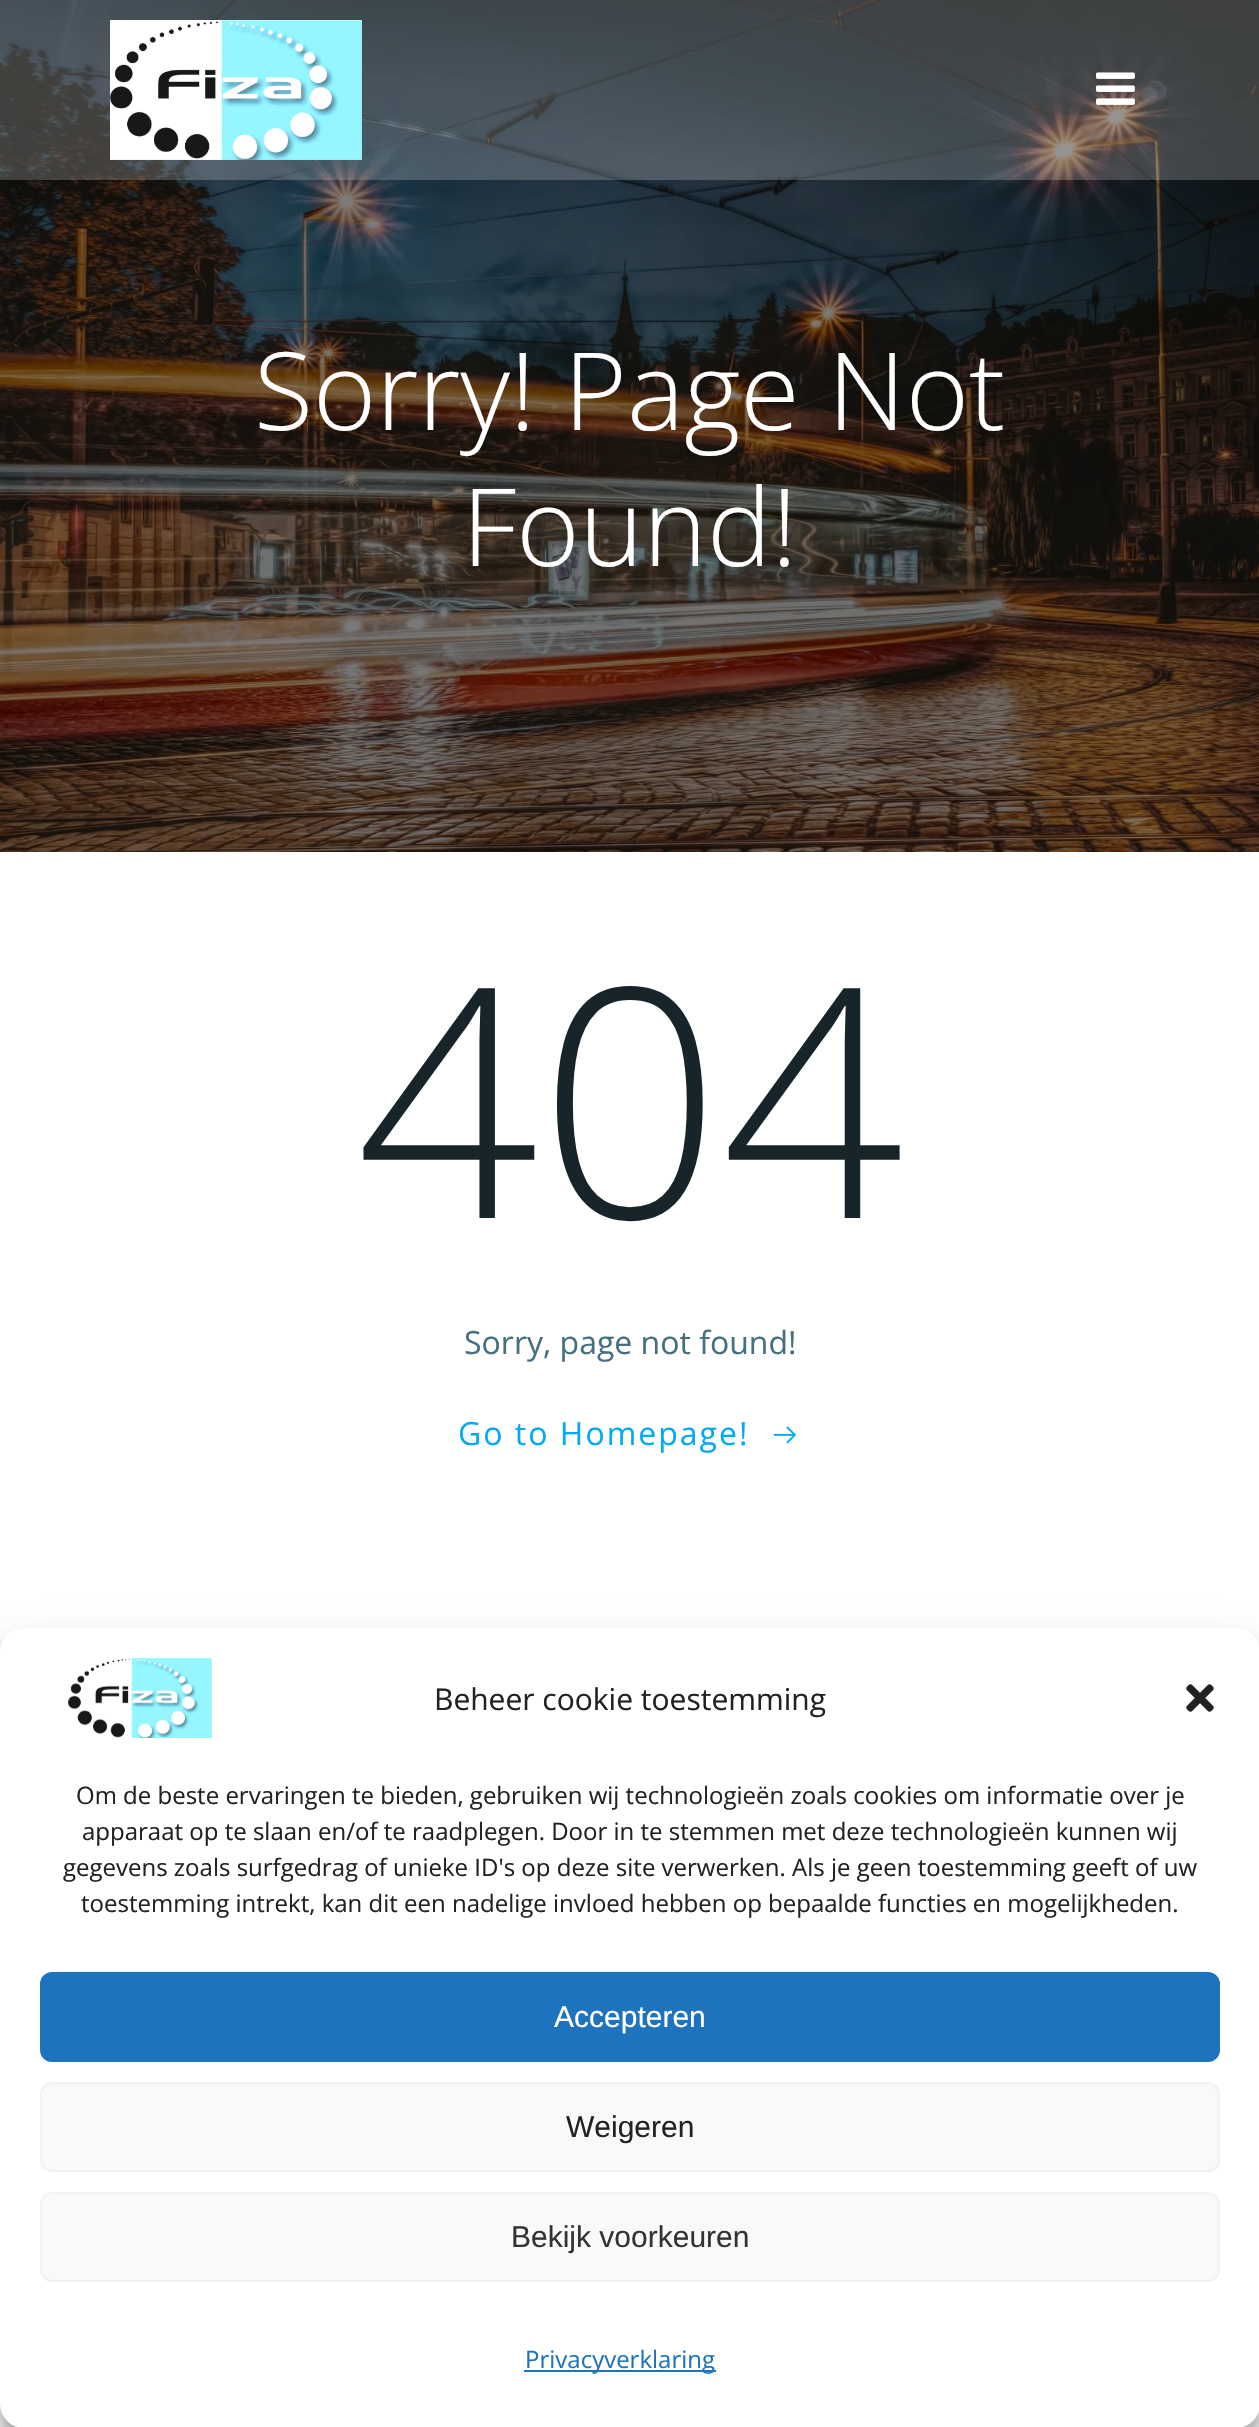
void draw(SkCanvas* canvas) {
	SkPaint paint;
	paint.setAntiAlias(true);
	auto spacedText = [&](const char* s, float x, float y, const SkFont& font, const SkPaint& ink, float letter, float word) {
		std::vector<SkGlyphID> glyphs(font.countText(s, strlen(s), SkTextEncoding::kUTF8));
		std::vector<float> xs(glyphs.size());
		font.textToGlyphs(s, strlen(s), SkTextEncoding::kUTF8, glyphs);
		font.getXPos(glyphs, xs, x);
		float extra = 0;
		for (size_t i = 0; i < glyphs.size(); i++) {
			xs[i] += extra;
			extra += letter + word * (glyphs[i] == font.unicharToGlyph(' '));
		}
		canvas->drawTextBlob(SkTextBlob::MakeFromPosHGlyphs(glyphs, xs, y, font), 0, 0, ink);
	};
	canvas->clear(0xffffffff);
	canvas->drawImageRect(SkImages::DeferredFromEncodedData(SkData::MakeFromFileName("img3.png")), SkRect::MakeXYWH(0, 0, 1259, 852), SkSamplingOptions());
	paint.setColor(0x33ffffff);
	canvas->drawRect(SkRect::MakeXYWH(0, 0, 1259, 180), paint);
	canvas->drawImageRect(SkImages::DeferredFromEncodedData(SkData::MakeFromFileName("img1.png")), SkRect::MakeXYWH(110, 20, 252, 140), SkSamplingOptions());
	canvas->drawImageRect(SkImages::DeferredFromEncodedData(SkData::MakeFromFileName("img2.png")), SkRect::MakeXYWH(1096, 72, 39, 33), SkSamplingOptions());
	SkFont f1(fontMgr->matchFamilyStyle("Open Sans", SkFontStyle(300, SkFontStyle::kNormal_Width, SkFontStyle::kUpright_Slant)), 108);
	f1.setSubpixel(true);
	paint.setColor(0xffffffff);
	canvas->drawString("Sorry! Page Not", 254, 430, f1, paint);
	canvas->drawString("Found!", 462, 566, f1, paint);
	SkFont f2(fontMgr->matchFamilyStyle("Open Sans", SkFontStyle(300, SkFontStyle::kNormal_Width, SkFontStyle::kUpright_Slant)), 320);
	f2.setSubpixel(true);
	paint.setColor(0xff17252a);
	canvas->drawString("404", 356, 1218, f2, paint);
	SkFont f3(fontMgr->matchFamilyStyle("Open Sans", SkFontStyle::Normal()), 32);
	f3.setSubpixel(true);
	paint.setColor(0xff46707f);
	canvas->drawString("Sorry, page not found!", 464, 1354, f3, paint);
	paint.setColor(0xff03a9f4);
	spacedText("Go to Homepage!", 458, 1445, f3, paint, 2, 0);
	canvas->drawImageRect(SkImages::DeferredFromEncodedData(SkData::MakeFromFileName("img4.png")), SkRect::MakeXYWH(773, 1426, 24, 18), SkSamplingOptions());
	paint.setColor(0x3b000000);
	paint.setMaskFilter(SkMaskFilter::MakeBlur(kNormal_SkBlurStyle, 6));
	canvas->drawRoundRect(SkRect::MakeXYWH(0, 1640, 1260, 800), 24, 24, paint);
	paint.setMaskFilter(nullptr);
	paint.setColor(0x30000000);
	paint.setMaskFilter(SkMaskFilter::MakeBlur(kNormal_SkBlurStyle, 20));
	canvas->drawRoundRect(SkRect::MakeXYWH(0, 1648, 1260, 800), 24, 24, paint);
	paint.setMaskFilter(nullptr);
	paint.setColor(0xffffffff);
	canvas->drawRoundRect(SkRect::MakeXYWH(0, 1628, 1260, 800), 24, 24, paint);
	canvas->drawImageRect(SkImages::DeferredFromEncodedData(SkData::MakeFromFileName("img5.png")), SkRect::MakeXYWH(68, 1658, 144, 80), SkSamplingOptions());
	SkFont f4(fontMgr->matchFamilyStyle("Open Sans", SkFontStyle::Normal()), 30);
	f4.setSubpixel(true);
	paint.setColor(0xff222222);
	canvas->drawString("Beheer cookie toestemming", 434, 1710, f4, paint);
	canvas->drawImageRect(SkImages::DeferredFromEncodedData(SkData::MakeFromFileName("img6.png")), SkRect::MakeXYWH(1186, 1684, 28, 28), SkSamplingOptions());
	SkFont f5(fontMgr->matchFamilyStyle("Open Sans", SkFontStyle::Normal()), 24);
	f5.setSubpixel(true);
	canvas->drawString("Om de beste ervaringen te bieden, gebruiken wij technologieën zoals cookies om informatie over je", 76, 1804, f5, paint);
	canvas->drawString("apparaat op te slaan en/of te raadplegen. Door in te stemmen met deze technologieën kunnen wij", 82, 1840, f5, paint);
	canvas->drawString("gegevens zoals surfgedrag of unieke ID's op deze site verwerken. Als je geen toestemming geeft of uw", 63, 1876, f5, paint);
	canvas->drawString("toestemming intrekt, kan dit een nadelige invloed hebben op bepaalde functies en mogelijkheden.", 81, 1912, f5, paint);
	paint.setColor(0xff1e73be);
	canvas->drawRoundRect(SkRect::MakeXYWH(41, 1973, 1178, 88), 11, 11, paint);
	paint.setStroke(true);
	paint.setStrokeWidth(2);
	canvas->drawRoundRect(SkRect::MakeXYWH(41, 1973, 1178, 88), 11, 11, paint);
	SkFont f6(fontMgr->matchFamilyStyle("Liberation Sans", SkFontStyle::Normal()), 30);
	f6.setSubpixel(true);
	paint.setStroke(false);
	paint.setColor(0xffffffff);
	canvas->drawString("Accepteren", 554, 2027, f6, paint);
	paint.setColor(0xfff9f9f9);
	canvas->drawRoundRect(SkRect::MakeXYWH(41, 2083, 1178, 88), 11, 11, paint);
	paint.setStroke(true);
	paint.setColor(0xfff2f2f2);
	canvas->drawRoundRect(SkRect::MakeXYWH(41, 2083, 1178, 88), 11, 11, paint);
	paint.setStroke(false);
	paint.setColor(0xff222222);
	canvas->drawString("Weigeren", 566, 2137, f6, paint);
	paint.setColor(0xfff9f9f9);
	canvas->drawRoundRect(SkRect::MakeXYWH(41, 2193, 1178, 88), 11, 11, paint);
	paint.setStroke(true);
	paint.setColor(0xfff2f2f2);
	canvas->drawRoundRect(SkRect::MakeXYWH(41, 2193, 1178, 88), 11, 11, paint);
	paint.setStroke(false);
	paint.setColor(0xff333333);
	canvas->drawString("Bekijk voorkeuren", 511, 2247, f6, paint);
	paint.setColor(0xff1e73be);
	canvas->drawRect(SkRect::MakeXYWH(524, 2370, 192, 2), paint);
	canvas->drawString("Privacyverklaring", 525, 2368, f5, paint);
}
